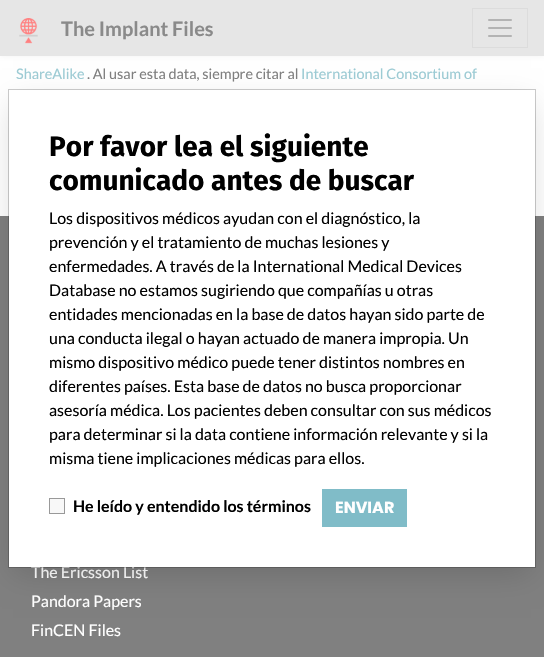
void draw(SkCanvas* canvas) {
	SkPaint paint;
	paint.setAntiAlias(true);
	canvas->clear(0xffffffff);
	paint.setColor(0x1a808080);
	paint.setMaskFilter(SkMaskFilter::MakeBlur(kNormal_SkBlurStyle, 3));
	canvas->drawRect(SkRect::MakeXYWH(0, 0, 544, 56), paint);
	paint.setMaskFilter(nullptr);
	paint.setColor(0xffe6e6e6);
	canvas->drawRect(SkRect::MakeXYWH(0, 0, 544, 56), paint);
	canvas->drawImageRect(SkImages::DeferredFromEncodedData(SkData::MakeFromFileName("img1.png")), SkRect::MakeXYWH(19, 18, 19, 26), SkSamplingOptions());
	SkFont f1(fontMgr->matchFamilyStyle("Lato", SkFontStyle::Bold()), 20);
	f1.setSubpixel(true);
	paint.setColor(0xff8a8a8a);
	canvas->drawString("The Implant Files", 61, 36, f1, paint);
	paint.setStroke(true);
	paint.setStrokeWidth(1);
	paint.setColor(0xffdcdcdc);
	canvas->drawRect(SkRect::MakeXYWH(472.5, 8.5, 55, 39), paint);
	canvas->drawImageRect(SkImages::DeferredFromEncodedData(SkData::MakeFromFileName("img2.png")), SkRect::MakeXYWH(488, 19, 24, 18), SkSamplingOptions());
	SkFont f2(fontMgr->matchFamilyStyle("Lato", SkFontStyle::Normal()), 14.4);
	f2.setSubpixel(true);
	paint.setStroke(false);
	paint.setColor(0xff9dccd5);
	canvas->drawString("ShareAlike", 16, 79, f2, paint);
	paint.setColor(0xff808080);
	canvas->drawString(". Al usar esta data, siempre citar al", 87, 79, f2, paint);
	paint.setColor(0xff9dccd5);
	canvas->drawString("International Consortium of", 301, 79, f2, paint);
	paint.setColor(0xff808080);
	canvas->drawRect(SkRect::MakeXYWH(0, 216, 544, 441), paint);
	SkFont f3(fontMgr->matchFamilyStyle("Lato", SkFontStyle::Normal()), 16);
	f3.setSubpixel(true);
	paint.setColor(0xffffffff);
	canvas->drawString("The Ericsson List", 31, 578, f3, paint);
	canvas->drawString("Pandora Papers", 31, 607, f3, paint);
	canvas->drawString("FinCEN Files", 31, 636, f3, paint);
	paint.setColor(0x26000000);
	paint.setMaskFilter(SkMaskFilter::MakeBlur(kNormal_SkBlurStyle, 15));
	canvas->drawRect(SkRect::MakeXYWH(13, 104, 518, 469), paint);
	paint.setMaskFilter(nullptr);
	paint.setColor(0xffffffff);
	canvas->drawRect(SkRect::MakeXYWH(9, 90, 526, 477), paint);
	paint.setStroke(true);
	paint.setColor(0x33000000);
	canvas->drawRect(SkRect::MakeXYWH(8.5, 89.5, 527, 478), paint);
	SkFont f4(fontMgr->matchFamilyStyle("Fira Sans", SkFontStyle::Bold()), 28);
	f4.setSubpixel(true);
	paint.setStroke(false);
	paint.setColor(0xff000000);
	canvas->drawString("Por favor lea el siguiente", 49, 156, f4, paint);
	canvas->drawString("comunicado antes de buscar", 49, 190, f4, paint);
	canvas->drawString("Los dispositivos médicos ayudan con el diagnóstico, la", 49, 224, f3, paint);
	canvas->drawString("prevención y el tratamiento de muchas lesiones y", 49, 248, f3, paint);
	canvas->drawString("enfermedades. A través de la International Medical Devices", 49, 272, f3, paint);
	canvas->drawString("Database no estamos sugiriendo que compañías u otras", 49, 296, f3, paint);
	canvas->drawString("entidades mencionadas en la base de datos hayan sido parte de", 49, 320, f3, paint);
	canvas->drawString("una conducta ilegal o hayan actuado de manera impropia. Un", 49, 344, f3, paint);
	canvas->drawString("mismo dispositivo médico puede tener distintos nombres en", 49, 368, f3, paint);
	canvas->drawString("diferentes países. Esta base de datos no busca proporcionar", 49, 392, f3, paint);
	canvas->drawString("asesoría médica. Los pacientes deben consultar con sus médicos", 49, 416, f3, paint);
	canvas->drawString("para determinar si la data contiene información relevante y si la", 49, 440, f3, paint);
	canvas->drawString("misma tiene implicaciones médicas para ellos.", 49, 464, f3, paint);
	paint.setColor(0xfff8f8f8);
	canvas->drawRect(SkRect::MakeXYWH(49.5, 498.5, 15, 15), paint);
	paint.setStroke(true);
	paint.setColor(0xff999999);
	canvas->drawRect(SkRect::MakeXYWH(49.5, 498.5, 15, 15), paint);
	SkFont f5(fontMgr->matchFamilyStyle("Lato", SkFontStyle::Bold()), 16);
	f5.setSubpixel(true);
	paint.setStroke(false);
	paint.setColor(0xff000000);
	canvas->drawString("He leído y entendido los términos", 73, 512, f5, paint);
	paint.setColor(0xff80bcc8);
	canvas->drawRect(SkRect::MakeXYWH(322, 489, 85, 38), paint);
	SkFont f6(fontMgr->matchFamilyStyle("Poppins", SkFontStyle::Bold()), 16);
	f6.setSubpixel(true);
	paint.setColor(0xffffffff);
	canvas->drawString("ENVIAR", 335, 513, f6, paint);
}
